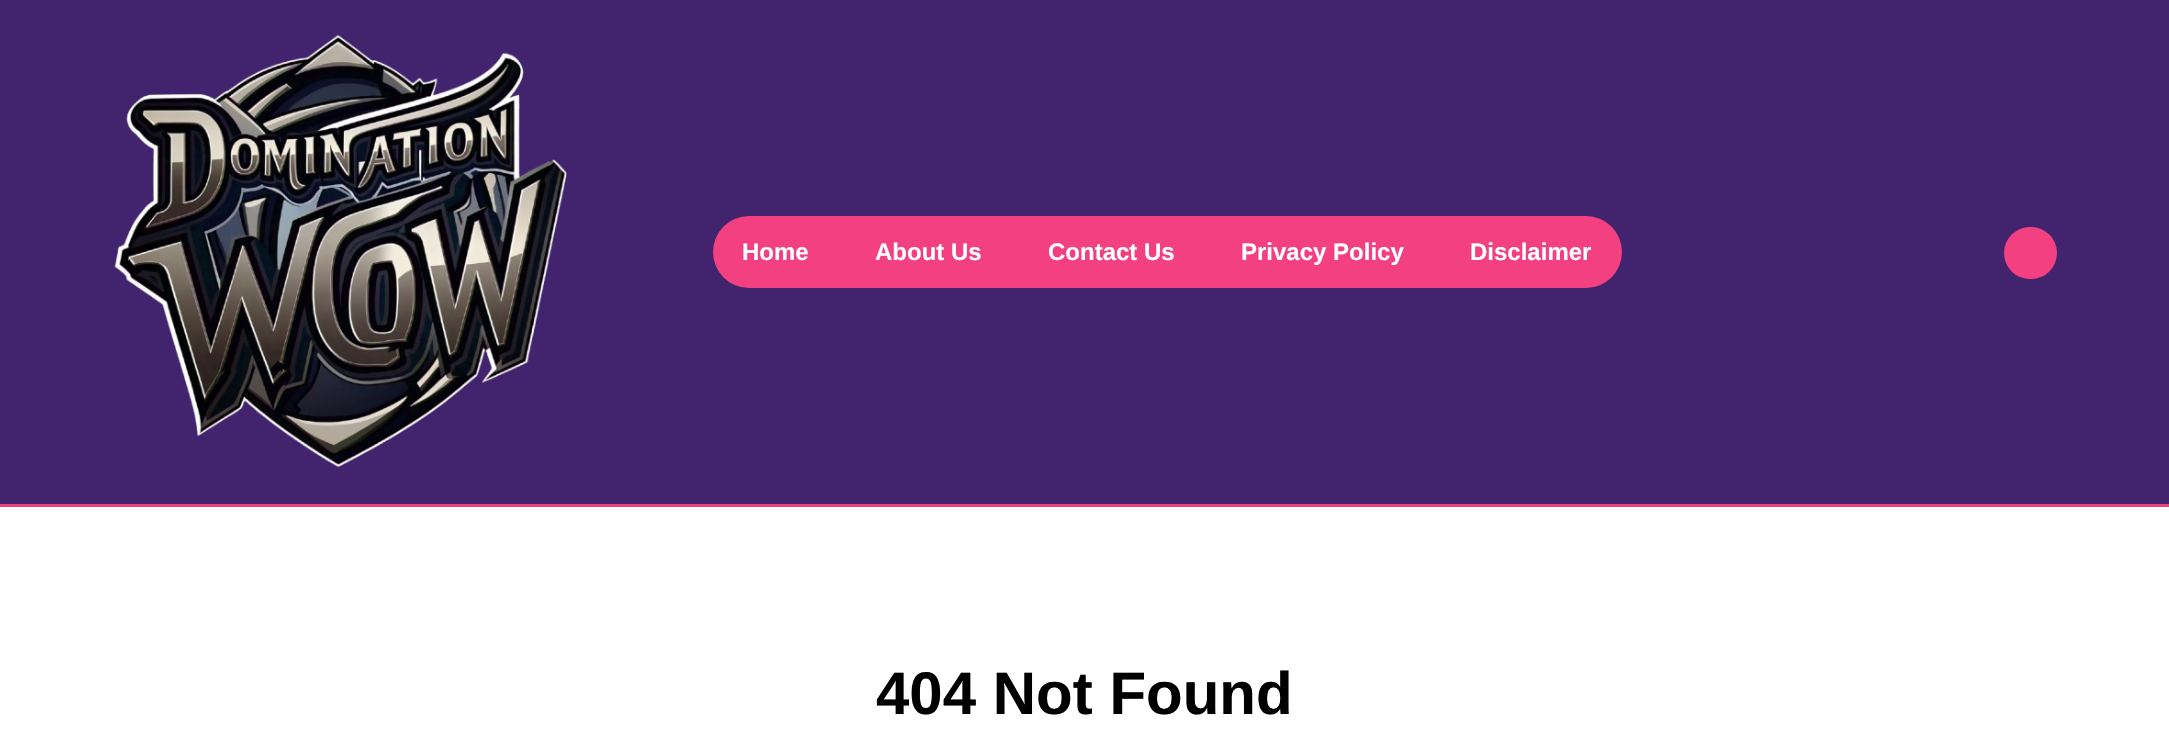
void draw(SkCanvas* canvas) {
	SkPaint paint;
	paint.setAntiAlias(true);
	canvas->clear(0xffffffff);
	paint.setColor(0xff41246d);
	canvas->drawRect(SkRect::MakeXYWH(0, 0, 2169, 504), paint);
	paint.setColor(0xfff24080);
	canvas->drawRect(SkRect::MakeXYWH(0, 504, 2169, 3), paint);
	canvas->drawImageRect(SkImages::DeferredFromEncodedData(SkData::MakeFromFileName("img1.png")), SkRect::MakeXYWH(114, 35, 453, 432), SkSamplingOptions());
	canvas->drawRoundRect(SkRect::MakeXYWH(713, 216, 909, 72), 36, 36, paint);
	SkFont f1(fontMgr->matchFamilyStyle("Liberation Sans", SkFontStyle::Bold()), 24);
	f1.setSubpixel(true);
	paint.setColor(0xffffffff);
	canvas->drawString("Home", 742, 260, f1, paint);
	canvas->drawString("About Us", 875, 260, f1, paint);
	canvas->drawString("Contact Us", 1048, 260, f1, paint);
	canvas->drawString("Privacy Policy", 1241, 260, f1, paint);
	canvas->drawString("Disclaimer", 1470, 260, f1, paint);
	paint.setColor(0xfff24080);
	canvas->drawRoundRect(SkRect::MakeXYWH(2004, 227, 53, 52), 26, 26, paint);
	SkFont f2(fontMgr->matchFamilyStyle("Liberation Sans", SkFontStyle::Bold()), 60);
	f2.setSubpixel(true);
	paint.setColor(0xff000000);
	canvas->drawString("404 Not Found", 876, 714, f2, paint);
}
